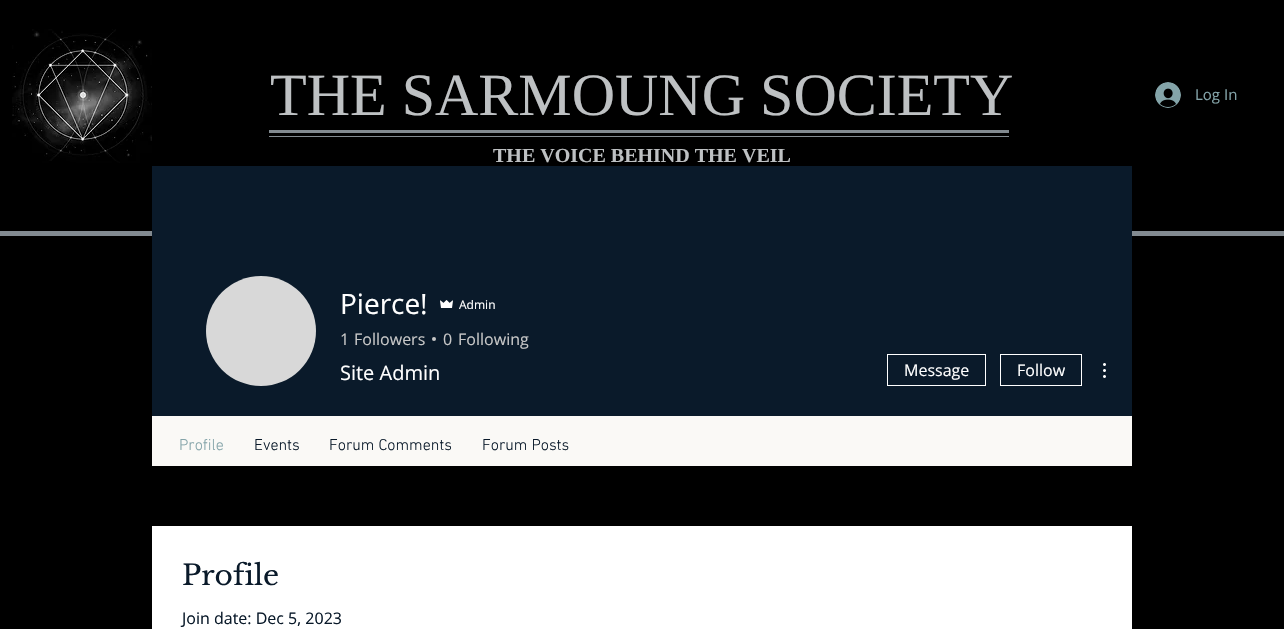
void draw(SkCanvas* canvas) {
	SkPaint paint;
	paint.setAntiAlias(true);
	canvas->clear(0xff828a90);
	paint.setColor(0xff000000);
	canvas->drawRect(SkRect::MakeXYWH(0, 0, 1284, 231), paint);
	canvas->drawImageRect(SkImages::DeferredFromEncodedData(SkData::MakeFromFileName("img1.png")), SkRect::MakeXYWH(12, 29, 140, 134), SkSamplingOptions());
	SkFont f1(fontMgr->matchFamilyStyle("Liberation Serif", SkFontStyle::Normal()), 60);
	f1.setSubpixel(true);
	paint.setColor(0xffbec1c3);
	canvas->drawString("THE SARMOUNG SOCIETY", 270, 115, f1, paint);
	canvas->drawImageRect(SkImages::DeferredFromEncodedData(SkData::MakeFromFileName("img2.png")), SkRect::MakeXYWH(1155, 82, 26, 26), SkSamplingOptions());
	SkFont f2(fontMgr->matchFamilyStyle("Open Sans", SkFontStyle::Normal()), 15);
	f2.setSubpixel(true);
	paint.setColor(0xff84a4a9);
	canvas->drawString("Log In", 1195, 100, f2, paint);
	paint.setColor(0xff828a90);
	canvas->drawRect(SkRect::MakeXYWH(269, 130, 740, 3), paint);
	canvas->drawRect(SkRect::MakeXYWH(269, 136, 740, 1), paint);
	SkFont f3(fontMgr->matchFamilyStyle("Liberation Serif", SkFontStyle::Bold()), 20);
	f3.setSubpixel(true);
	paint.setColor(0xffbec1c3);
	canvas->drawString("THE VOICE BEHIND THE VEIL", 493, 162, f3, paint);
	paint.setColor(0xff000000);
	canvas->drawRect(SkRect::MakeXYWH(0, 236, 1284, 393), paint);
	paint.setColor(0xff0a1a2a);
	canvas->drawRect(SkRect::MakeXYWH(152, 166, 980, 250), paint);
	paint.setColor(0xffd8d8d8);
	canvas->drawCircle(261, 331, 55, paint);
	SkFont f4(fontMgr->matchFamilyStyle("Open Sans", SkFontStyle::Normal()), 28);
	f4.setSubpixel(true);
	paint.setColor(0xffffffff);
	canvas->drawString("Pierce!", 340, 314, f4, paint);
	canvas->drawImageRect(SkImages::DeferredFromEncodedData(SkData::MakeFromFileName("img3.png")), SkRect::MakeXYWH(440, 300, 13, 8), SkSamplingOptions());
	SkFont f5(fontMgr->matchFamilyStyle("Open Sans", SkFontStyle::Normal()), 12);
	f5.setSubpixel(true);
	canvas->drawString("Admin", 459, 309, f5, paint);
	SkFont f6(fontMgr->matchFamilyStyle("Open Sans", SkFontStyle::Normal()), 16);
	f6.setSubpixel(true);
	paint.setColor(0xffc7c7c7);
	canvas->drawString("1", 340, 345, f6, paint);
	canvas->drawString("Followers", 354, 345, f6, paint);
	canvas->drawCircle(434, 339, 2, paint);
	canvas->drawString("0", 443, 345, f6, paint);
	canvas->drawString("Following", 458, 345, f6, paint);
	SkFont f7(fontMgr->matchFamilyStyle("Open Sans", SkFontStyle::Normal()), 20);
	f7.setSubpixel(true);
	paint.setColor(0xffffffff);
	canvas->drawString("Site Admin", 340, 380, f7, paint);
	paint.setStroke(true);
	paint.setStrokeWidth(1);
	canvas->drawRect(SkRect::MakeXYWH(887.5, 354.5, 98, 31), paint);
	paint.setStroke(false);
	canvas->drawString("Message", 904, 376, f6, paint);
	paint.setStroke(true);
	canvas->drawRect(SkRect::MakeXYWH(1000.5, 354.5, 81, 31), paint);
	paint.setStroke(false);
	canvas->drawString("Follow", 1017, 376, f6, paint);
	canvas->drawImageRect(SkImages::DeferredFromEncodedData(SkData::MakeFromFileName("img4.png")), SkRect::MakeXYWH(1103, 363, 3, 15), SkSamplingOptions());
	paint.setColor(0xfffaf9f6);
	canvas->drawRect(SkRect::MakeXYWH(152, 416, 980, 50), paint);
	SkFont f8(fontMgr->matchFamilyStyle("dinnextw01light", SkFontStyle(300, SkFontStyle::kNormal_Width, SkFontStyle::kUpright_Slant)), 16);
	f8.setSubpixel(true);
	paint.setColor(0xff84a4a9);
	canvas->drawString("Profile", 179, 450, f8, paint);
	paint.setColor(0xff0a1a2a);
	canvas->drawString("Events", 254, 450, f8, paint);
	canvas->drawString("Forum Comments", 329, 450, f8, paint);
	canvas->drawString("Forum Posts", 482, 450, f8, paint);
	paint.setColor(0xffffffff);
	canvas->drawRect(SkRect::MakeXYWH(152, 526, 980, 103), paint);
	SkFont f9(fontMgr->matchFamilyStyle("Libre Baskerville", SkFontStyle::Normal()), 28);
	f9.setSubpixel(true);
	paint.setColor(0xff0a1a2a);
	canvas->drawString("Profile", 182, 585, f9, paint);
	canvas->drawString("Join date: Dec 5, 2023", 182, 624, f6, paint);
}
